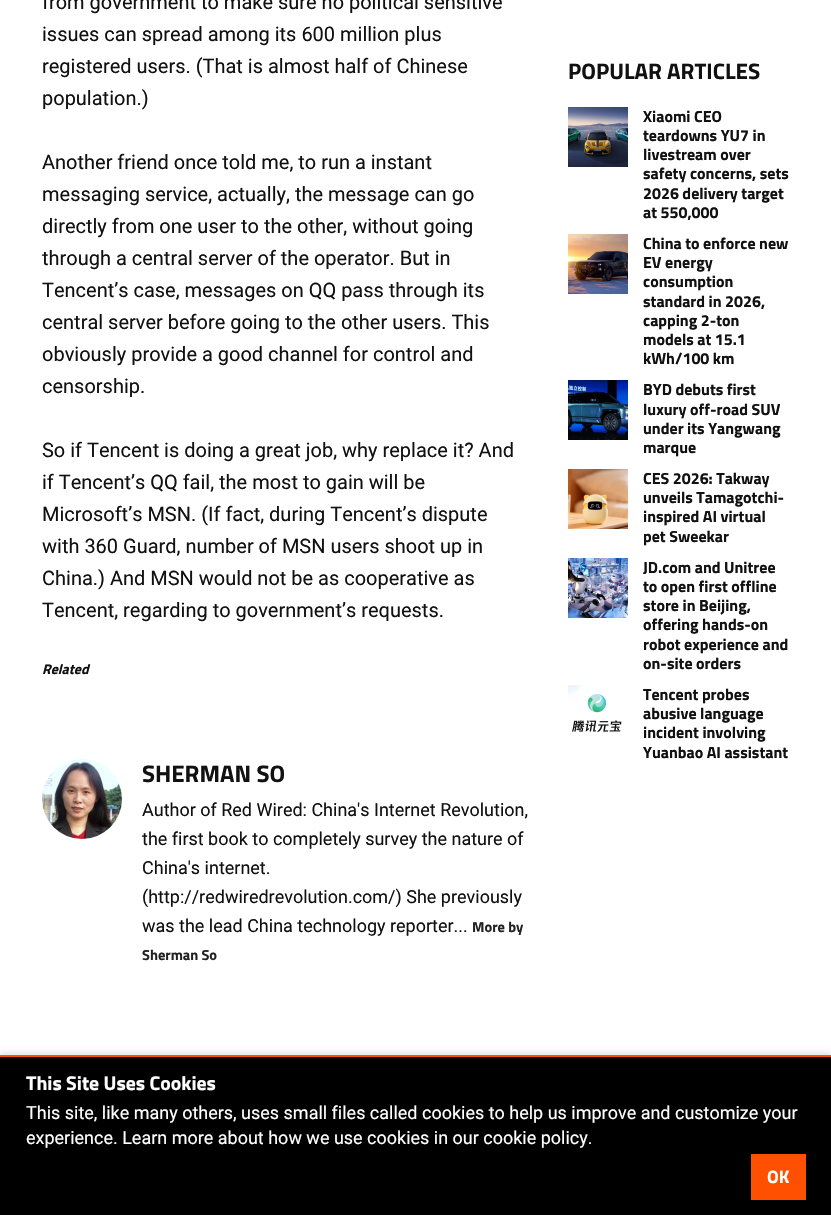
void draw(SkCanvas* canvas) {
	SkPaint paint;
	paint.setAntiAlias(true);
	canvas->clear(0xffffffff);
	SkFont f1(fontMgr->matchFamilyStyle("Roboto", SkFontStyle::Normal()), 20);
	f1.setSubpixel(true);
	paint.setColor(0xff111111);
	canvas->drawString("from government to make sure no political sensitive", 42, 9, f1, paint);
	canvas->drawString("issues can spread among its 600 million plus", 42, 41, f1, paint);
	canvas->drawString("registered users. (That is almost half of Chinese", 42, 73, f1, paint);
	canvas->drawString("population.)", 42, 105, f1, paint);
	canvas->drawString("Another friend once told me, to run a instant", 42, 169, f1, paint);
	canvas->drawString("messaging service, actually, the message can go", 42, 201, f1, paint);
	canvas->drawString("directly from one user to the other, without going", 42, 233, f1, paint);
	canvas->drawString("through a central server of the operator. But in", 42, 265, f1, paint);
	canvas->drawString("Tencent’s case, messages on QQ pass through its", 42, 297, f1, paint);
	canvas->drawString("central server before going to the other users. This", 42, 329, f1, paint);
	canvas->drawString("obviously provide a good channel for control and", 42, 361, f1, paint);
	canvas->drawString("censorship.", 42, 393, f1, paint);
	canvas->drawString("So if Tencent is doing a great job, why replace it? And", 42, 457, f1, paint);
	canvas->drawString("if Tencent’s QQ fail, the most to gain will be", 42, 489, f1, paint);
	canvas->drawString("Microsoft’s MSN. (If fact, during Tencent’s dispute", 42, 521, f1, paint);
	canvas->drawString("with 360 Guard, number of MSN users shoot up in", 42, 553, f1, paint);
	canvas->drawString("China.) And MSN would not be as cooperative as", 42, 585, f1, paint);
	canvas->drawString("Tencent, regarding to government’s requests.", 42, 617, f1, paint);
	SkFont f2(fontMgr->matchFamilyStyle("Titillium Web", SkFontStyle::BoldItalic()), 14);
	f2.setSubpixel(true);
	canvas->drawString("Related", 42, 674, f2, paint);
	canvas->drawImageRect(SkImages::DeferredFromEncodedData(SkData::MakeFromFileName("img1.png")), SkRect::MakeXYWH(42, 759, 80, 80), SkSamplingOptions());
	SkFont f3(fontMgr->matchFamilyStyle("Titillium Web", SkFontStyle::Bold()), 24);
	f3.setSubpixel(true);
	canvas->drawString("SHERMAN SO", 142, 782, f3, paint);
	SkFont f4(fontMgr->matchFamilyStyle("Roboto", SkFontStyle::Normal()), 18);
	f4.setSubpixel(true);
	canvas->drawString("Author of Red Wired: China's Internet Revolution,", 142, 816, f4, paint);
	canvas->drawString("the first book to completely survey the nature of", 142, 845, f4, paint);
	canvas->drawString("China's internet.", 142, 874, f4, paint);
	canvas->drawString("(http://redwiredrevolution.com/) She previously", 142, 903, f4, paint);
	canvas->drawString("was the lead China technology reporter...", 142, 932, f4, paint);
	SkFont f5(fontMgr->matchFamilyStyle("Titillium Web", SkFontStyle::Bold()), 14.5);
	f5.setSubpixel(true);
	paint.setColor(0xff222222);
	canvas->drawString("More by", 472, 932, f5, paint);
	canvas->drawString("Sherman So", 142, 960, f5, paint);
	SkFont f6(fontMgr->matchFamilyStyle("Titillium Web", SkFontStyle::Bold()), 22.5);
	f6.setSubpixel(true);
	paint.setColor(0xff111111);
	canvas->drawString("POPULAR ARTICLES", 568, 79, f6, paint);
	canvas->drawImageRect(SkImages::DeferredFromEncodedData(SkData::MakeFromFileName("img2.png")), SkRect::MakeXYWH(568, 107, 60, 60), SkSamplingOptions());
	SkFont f7(fontMgr->matchFamilyStyle("Titillium Web", SkFontStyle::Bold()), 16);
	f7.setSubpixel(true);
	canvas->drawString("Xiaomi CEO", 643, 122, f7, paint);
	canvas->drawString("teardowns YU7 in", 643, 141, f7, paint);
	canvas->drawString("livestream over", 643, 160, f7, paint);
	canvas->drawString("safety concerns, sets", 643, 179, f7, paint);
	canvas->drawString("2026 delivery target", 643, 199, f7, paint);
	canvas->drawString("at 550,000", 643, 218, f7, paint);
	canvas->drawImageRect(SkImages::DeferredFromEncodedData(SkData::MakeFromFileName("img3.png")), SkRect::MakeXYWH(568, 234, 60, 60), SkSamplingOptions());
	canvas->drawString("China to enforce new", 643, 249, f7, paint);
	canvas->drawString("EV energy", 643, 268, f7, paint);
	canvas->drawString("consumption", 643, 287, f7, paint);
	canvas->drawString("standard in 2026,", 643, 307, f7, paint);
	canvas->drawString("capping 2-ton", 643, 326, f7, paint);
	canvas->drawString("models at 15.1", 643, 345, f7, paint);
	canvas->drawString("kWh/100 km", 643, 364, f7, paint);
	canvas->drawImageRect(SkImages::DeferredFromEncodedData(SkData::MakeFromFileName("img4.png")), SkRect::MakeXYWH(568, 380, 60, 60), SkSamplingOptions());
	canvas->drawString("BYD debuts first", 643, 395, f7, paint);
	canvas->drawString("luxury off-road SUV", 643, 415, f7, paint);
	canvas->drawString("under its Yangwang", 643, 434, f7, paint);
	canvas->drawString("marque", 643, 453, f7, paint);
	canvas->drawImageRect(SkImages::DeferredFromEncodedData(SkData::MakeFromFileName("img5.png")), SkRect::MakeXYWH(568, 469, 60, 60), SkSamplingOptions());
	canvas->drawString("CES 2026: Takway", 643, 484, f7, paint);
	canvas->drawString("unveils Tamagotchi-", 643, 503, f7, paint);
	canvas->drawString("inspired AI virtual", 643, 522, f7, paint);
	canvas->drawString("pet Sweekar", 643, 542, f7, paint);
	canvas->drawImageRect(SkImages::DeferredFromEncodedData(SkData::MakeFromFileName("img6.png")), SkRect::MakeXYWH(568, 558, 60, 60), SkSamplingOptions());
	canvas->drawString("JD.com and Unitree", 643, 573, f7, paint);
	canvas->drawString("to open first offline", 643, 592, f7, paint);
	canvas->drawString("store in Beijing,", 643, 611, f7, paint);
	canvas->drawString("offering hands-on", 643, 630, f7, paint);
	canvas->drawString("robot experience and", 643, 650, f7, paint);
	canvas->drawString("on-site orders", 643, 669, f7, paint);
	canvas->drawImageRect(SkImages::DeferredFromEncodedData(SkData::MakeFromFileName("img7.png")), SkRect::MakeXYWH(568, 685, 54, 47), SkSamplingOptions());
	canvas->drawString("Tencent probes", 643, 700, f7, paint);
	canvas->drawString("abusive language", 643, 719, f7, paint);
	canvas->drawString("incident involving", 643, 738, f7, paint);
	canvas->drawString("Yuanbao AI assistant", 643, 758, f7, paint);
	paint.setColor(0x1a000000);
	paint.setMaskFilter(SkMaskFilter::MakeBlur(kNormal_SkBlurStyle, 2.5));
	canvas->drawRect(SkRect::MakeXYWH(0, 1052, 831, 160), paint);
	paint.setMaskFilter(nullptr);
	paint.setColor(0xff000000);
	canvas->drawRect(SkRect::MakeXYWH(0, 1057, 831, 158), paint);
	paint.setColor(0xfffe5000);
	canvas->drawRect(SkRect::MakeXYWH(0, 1055, 831, 2), paint);
	SkFont f8(fontMgr->matchFamilyStyle("Titillium Web", SkFontStyle::Bold()), 19.75);
	f8.setSubpixel(true);
	paint.setColor(0xffffffff);
	canvas->drawString("This Site Uses Cookies", 26, 1090, f8, paint);
	canvas->drawString("This site, like many others, uses small files called cookies to help us improve and customize your", 26, 1119, f4, paint);
	canvas->drawString("experience. Learn more about how we use cookies in our cookie policy.", 26, 1144, f4, paint);
	paint.setColor(0xfffe5000);
	canvas->drawRect(SkRect::MakeXYWH(751, 1154, 55, 46), paint);
	SkFont f9(fontMgr->matchFamilyStyle("Titillium Web", SkFontStyle::Bold()), 18);
	f9.setSubpixel(true);
	paint.setColor(0xffffffff);
	canvas->drawString("OK", 767, 1183, f9, paint);
}
